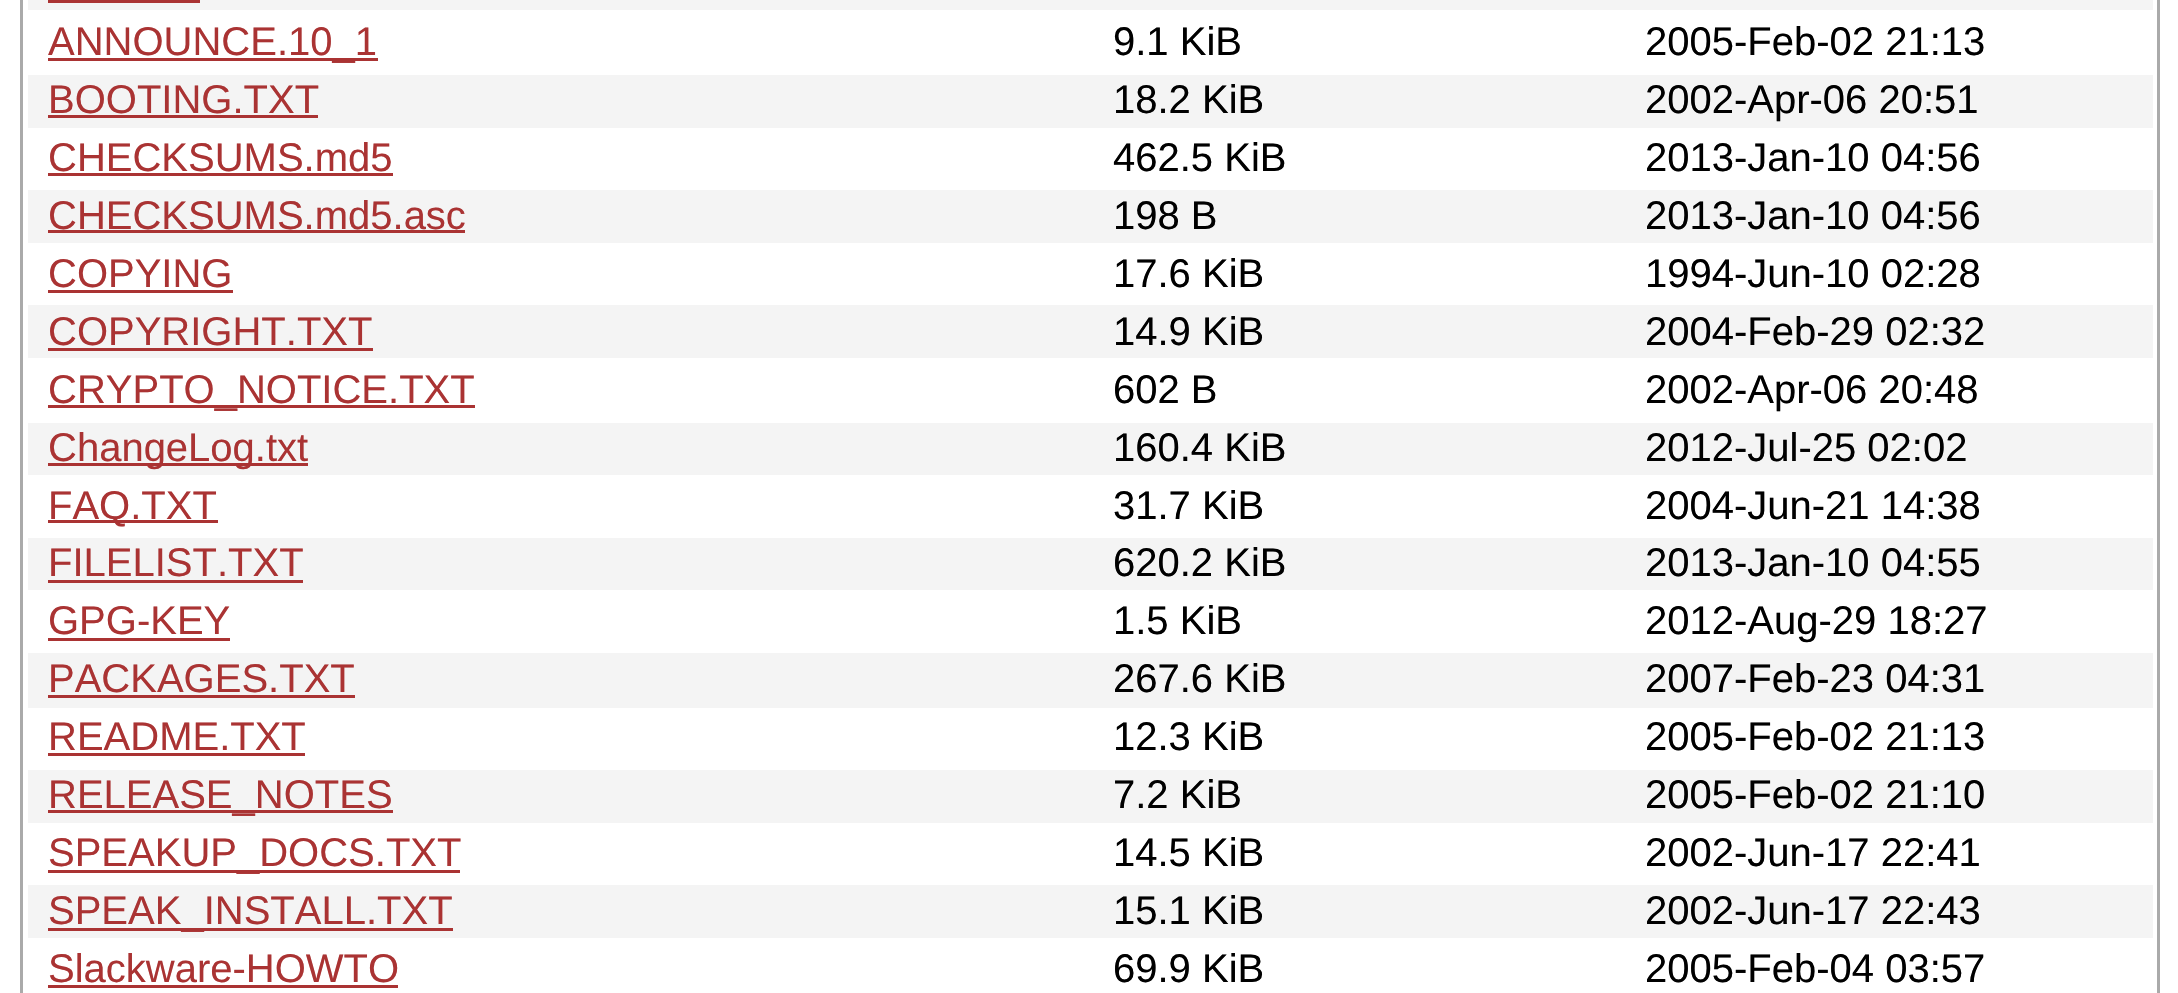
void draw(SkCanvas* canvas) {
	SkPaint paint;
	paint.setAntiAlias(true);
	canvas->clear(0xffffffff);
	paint.setStroke(true);
	paint.setStrokeWidth(3);
	paint.setColor(0xffaaaaaa);
	canvas->drawRect(SkRect::MakeXYWH(21.5, -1.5, 2137, 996), paint);
	paint.setStroke(false);
	paint.setColor(0xfff4f4f4);
	canvas->drawRect(SkRect::MakeXYWH(28, 0, 2125, 10), paint);
	paint.setColor(0xffaa3333);
	canvas->drawRect(SkRect::MakeXYWH(48, 0, 152, 3), paint);
	canvas->drawRect(SkRect::MakeXYWH(48, 58, 330, 3), paint);
	SkFont f1(fontMgr->matchFamilyStyle("Liberation Sans", SkFontStyle::Normal()), 40);
	f1.setSubpixel(true);
	canvas->drawString("ANNOUNCE.10_1", 48, 55, f1, paint);
	paint.setColor(0xff000000);
	canvas->drawString("9.1 KiB", 1113, 55, f1, paint);
	canvas->drawString("2005-Feb-02 21:13", 1645, 55, f1, paint);
	paint.setColor(0xfff4f4f4);
	canvas->drawRect(SkRect::MakeXYWH(28, 75, 2125, 53), paint);
	paint.setColor(0xffaa3333);
	canvas->drawString("BOOTING.TXT", 48, 113, f1, paint);
	canvas->drawRect(SkRect::MakeXYWH(48, 115, 270, 3), paint);
	paint.setColor(0xff000000);
	canvas->drawString("18.2 KiB", 1113, 113, f1, paint);
	canvas->drawString("2002-Apr-06 20:51", 1645, 113, f1, paint);
	paint.setColor(0xffaa3333);
	canvas->drawString("CHECKSUMS.md5", 48, 171, f1, paint);
	canvas->drawRect(SkRect::MakeXYWH(48, 173, 345, 3), paint);
	paint.setColor(0xff000000);
	canvas->drawString("462.5 KiB", 1113, 171, f1, paint);
	canvas->drawString("2013-Jan-10 04:56", 1645, 171, f1, paint);
	paint.setColor(0xfff4f4f4);
	canvas->drawRect(SkRect::MakeXYWH(28, 190, 2125, 53), paint);
	paint.setColor(0xffaa3333);
	canvas->drawString("CHECKSUMS.md5.asc", 48, 229, f1, paint);
	canvas->drawRect(SkRect::MakeXYWH(48, 230, 417, 3), paint);
	paint.setColor(0xff000000);
	canvas->drawString("198 B", 1113, 229, f1, paint);
	canvas->drawString("2013-Jan-10 04:56", 1645, 229, f1, paint);
	paint.setColor(0xffaa3333);
	canvas->drawString("COPYING", 48, 287, f1, paint);
	canvas->drawRect(SkRect::MakeXYWH(48, 290, 185, 3), paint);
	paint.setColor(0xff000000);
	canvas->drawString("17.6 KiB", 1113, 287, f1, paint);
	canvas->drawString("1994-Jun-10 02:28", 1645, 287, f1, paint);
	paint.setColor(0xfff4f4f4);
	canvas->drawRect(SkRect::MakeXYWH(28, 305, 2125, 53), paint);
	paint.setColor(0xffaa3333);
	canvas->drawString("COPYRIGHT.TXT", 48, 345, f1, paint);
	canvas->drawRect(SkRect::MakeXYWH(48, 348, 325, 3), paint);
	paint.setColor(0xff000000);
	canvas->drawString("14.9 KiB", 1113, 345, f1, paint);
	canvas->drawString("2004-Feb-29 02:32", 1645, 345, f1, paint);
	paint.setColor(0xffaa3333);
	canvas->drawRect(SkRect::MakeXYWH(48, 405, 427, 3), paint);
	canvas->drawString("CRYPTO_NOTICE.TXT", 48, 403, f1, paint);
	paint.setColor(0xff000000);
	canvas->drawString("602 B", 1113, 403, f1, paint);
	canvas->drawString("2002-Apr-06 20:48", 1645, 403, f1, paint);
	paint.setColor(0xfff4f4f4);
	canvas->drawRect(SkRect::MakeXYWH(28, 423, 2125, 52), paint);
	paint.setColor(0xffaa3333);
	canvas->drawRect(SkRect::MakeXYWH(48, 463, 260, 3), paint);
	canvas->drawString("ChangeLog.txt", 48, 461, f1, paint);
	paint.setColor(0xff000000);
	canvas->drawString("160.4 KiB", 1113, 461, f1, paint);
	canvas->drawString("2012-Jul-25 02:02", 1645, 461, f1, paint);
	paint.setColor(0xffaa3333);
	canvas->drawRect(SkRect::MakeXYWH(48, 520, 170, 3), paint);
	canvas->drawString("FAQ.TXT", 48, 519, f1, paint);
	paint.setColor(0xff000000);
	canvas->drawString("31.7 KiB", 1113, 519, f1, paint);
	canvas->drawString("2004-Jun-21 14:38", 1645, 519, f1, paint);
	paint.setColor(0xfff4f4f4);
	canvas->drawRect(SkRect::MakeXYWH(28, 538, 2125, 52), paint);
	paint.setColor(0xffaa3333);
	canvas->drawString("FILELIST.TXT", 48, 576, f1, paint);
	canvas->drawRect(SkRect::MakeXYWH(48, 580, 255, 3), paint);
	paint.setColor(0xff000000);
	canvas->drawString("620.2 KiB", 1113, 576, f1, paint);
	canvas->drawString("2013-Jan-10 04:55", 1645, 576, f1, paint);
	paint.setColor(0xffaa3333);
	canvas->drawString("GPG-KEY", 48, 634, f1, paint);
	canvas->drawRect(SkRect::MakeXYWH(48, 638, 182, 3), paint);
	paint.setColor(0xff000000);
	canvas->drawString("1.5 KiB", 1113, 634, f1, paint);
	canvas->drawString("2012-Aug-29 18:27", 1645, 634, f1, paint);
	paint.setColor(0xfff4f4f4);
	canvas->drawRect(SkRect::MakeXYWH(28, 653, 2125, 55), paint);
	paint.setColor(0xffaa3333);
	canvas->drawString("PACKAGES.TXT", 48, 692, f1, paint);
	canvas->drawRect(SkRect::MakeXYWH(48, 695, 307, 3), paint);
	paint.setColor(0xff000000);
	canvas->drawString("267.6 KiB", 1113, 692, f1, paint);
	canvas->drawString("2007-Feb-23 04:31", 1645, 692, f1, paint);
	paint.setColor(0xffaa3333);
	canvas->drawString("README.TXT", 48, 750, f1, paint);
	canvas->drawRect(SkRect::MakeXYWH(48, 753, 257, 3), paint);
	paint.setColor(0xff000000);
	canvas->drawString("12.3 KiB", 1113, 750, f1, paint);
	canvas->drawString("2005-Feb-02 21:13", 1645, 750, f1, paint);
	paint.setColor(0xfff4f4f4);
	canvas->drawRect(SkRect::MakeXYWH(28, 770, 2125, 53), paint);
	paint.setColor(0xffaa3333);
	canvas->drawRect(SkRect::MakeXYWH(48, 810, 345, 3), paint);
	canvas->drawString("RELEASE_NOTES", 48, 808, f1, paint);
	paint.setColor(0xff000000);
	canvas->drawString("7.2 KiB", 1113, 808, f1, paint);
	canvas->drawString("2005-Feb-02 21:10", 1645, 808, f1, paint);
	paint.setColor(0xffaa3333);
	canvas->drawRect(SkRect::MakeXYWH(48, 870, 412, 3), paint);
	canvas->drawString("SPEAKUP_DOCS.TXT", 48, 866, f1, paint);
	paint.setColor(0xff000000);
	canvas->drawString("14.5 KiB", 1113, 866, f1, paint);
	canvas->drawString("2002-Jun-17 22:41", 1645, 866, f1, paint);
	paint.setColor(0xfff4f4f4);
	canvas->drawRect(SkRect::MakeXYWH(28, 885, 2125, 53), paint);
	paint.setColor(0xffaa3333);
	canvas->drawRect(SkRect::MakeXYWH(48, 928, 405, 3), paint);
	canvas->drawString("SPEAK_INSTALL.TXT", 48, 924, f1, paint);
	paint.setColor(0xff000000);
	canvas->drawString("15.1 KiB", 1113, 924, f1, paint);
	canvas->drawString("2002-Jun-17 22:43", 1645, 924, f1, paint);
	paint.setColor(0xffaa3333);
	canvas->drawString("Slackware-HOWTO", 48, 982, f1, paint);
	canvas->drawRect(SkRect::MakeXYWH(48, 985, 350, 3), paint);
	paint.setColor(0xff000000);
	canvas->drawString("69.9 KiB", 1113, 982, f1, paint);
	canvas->drawString("2005-Feb-04 03:57", 1645, 982, f1, paint);
}
